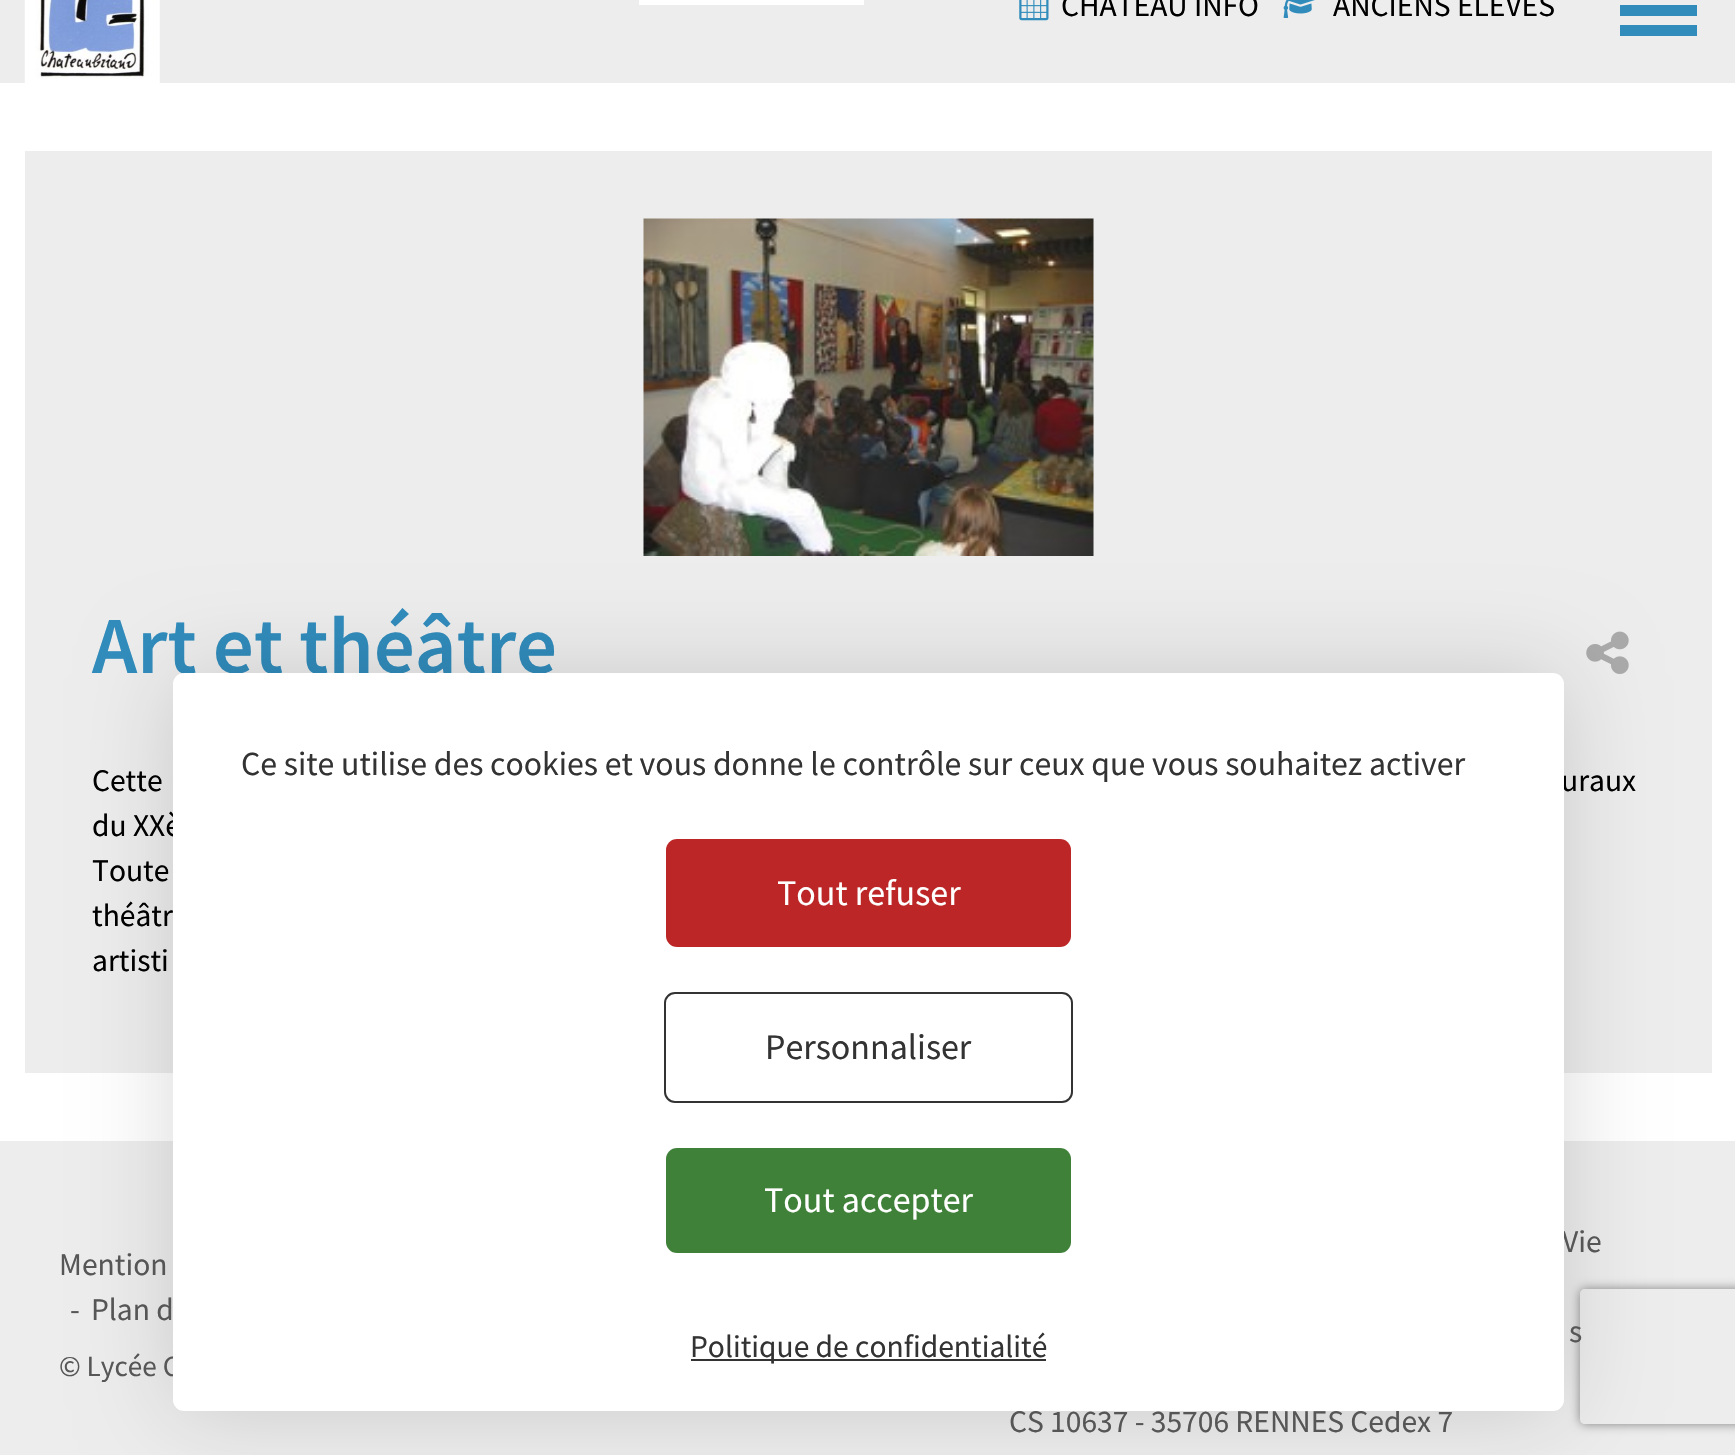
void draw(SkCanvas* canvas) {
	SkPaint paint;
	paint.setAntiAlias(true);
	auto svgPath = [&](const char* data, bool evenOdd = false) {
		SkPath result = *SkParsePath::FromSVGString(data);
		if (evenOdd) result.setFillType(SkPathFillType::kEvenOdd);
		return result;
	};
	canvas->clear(0xffffffff);
	paint.setColor(0xffededed);
	canvas->drawRect(SkRect::MakeXYWH(0, 0, 1735, 83), paint);
	canvas->drawImageRect(SkImages::DeferredFromEncodedData(SkData::MakeFromFileName("img1.png")), SkRect::MakeXYWH(24, 0, 136, 83), SkSamplingOptions());
	paint.setColor(0xffffffff);
	canvas->drawRect(SkRect::MakeXYWH(639, 0, 225, 5), paint);
	canvas->drawImageRect(SkImages::DeferredFromEncodedData(SkData::MakeFromFileName("img2.png")), SkRect::MakeXYWH(1019, 0, 30, 21), SkSamplingOptions());
	SkFont f1(fontMgr->matchFamilyStyle("Source Sans Pro", SkFontStyle::Normal()), 31.5);
	f1.setSubpixel(true);
	paint.setColor(0xff000000);
	canvas->drawString("CHATEAU INFO", 1061, 16, f1, paint);
	canvas->drawImageRect(SkImages::DeferredFromEncodedData(SkData::MakeFromFileName("img3.png")), SkRect::MakeXYWH(1283, 0, 32, 18), SkSamplingOptions());
	canvas->drawString("ANCIENS ÉLÈVES", 1333, 16, f1, paint);
	paint.setColor(0xff318cbc);
	canvas->drawRect(SkRect::MakeXYWH(1620, 5, 77, 11), paint);
	canvas->drawRect(SkRect::MakeXYWH(1620, 25, 77, 11), paint);
	paint.setColor(0xffededed);
	canvas->drawRect(SkRect::MakeXYWH(25, 151, 1687, 922), paint);
	canvas->drawImageRect(SkImages::DeferredFromEncodedData(SkData::MakeFromFileName("img4.png")), SkRect::MakeXYWH(643, 218, 451, 338), SkSamplingOptions());
	SkFont f2(fontMgr->matchFamilyStyle("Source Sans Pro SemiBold", SkFontStyle(600, SkFontStyle::kNormal_Width, SkFontStyle::kUpright_Slant)), 81);
	f2.setSubpixel(true);
	paint.setColor(0xff318cbc);
	canvas->drawString("Art et théâtre", 92, 673, f2, paint);
	canvas->drawImageRect(SkImages::DeferredFromEncodedData(SkData::MakeFromFileName("img5.png")), SkRect::MakeXYWH(1586, 631, 43, 43), SkSamplingOptions());
	paint.setColor(0xff000000);
	canvas->drawString("Cette", 92, 791, f1, paint);
	canvas->drawString("uraux", 1561, 791, f1, paint);
	canvas->drawString("du XXè", 92, 836, f1, paint);
	canvas->drawString("Toute", 92, 881, f1, paint);
	canvas->drawString("théâtr", 92, 926, f1, paint);
	canvas->drawString("artisti", 92, 971, f1, paint);
	paint.setColor(0xffededed);
	canvas->drawRect(SkRect::MakeXYWH(0, 1141, 1735, 314), paint);
	paint.setColor(0x26000000);
	paint.setMaskFilter(SkMaskFilter::MakeBlur(kNormal_SkBlurStyle, 46));
	canvas->drawRoundRect(SkRect::MakeXYWH(173, 673, 1391, 738), 11, 11, paint);
	paint.setMaskFilter(nullptr);
	SkFont f3(fontMgr->matchFamilyStyle("Source Sans Pro", SkFontStyle::Normal()), 29.25);
	f3.setSubpixel(true);
	paint.setColor(0xff565657);
	canvas->drawString("© Lycée C", 59, 1376, f3, paint);
	canvas->drawString("Vie", 1562, 1252, f1, paint);
	canvas->drawString("CS 10637 - 35706 RENNES Cedex 7", 1009, 1432, f1, paint);
	canvas->save();
	canvas->clipPath(svgPath("M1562 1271H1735V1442H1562ZM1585 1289H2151C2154 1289 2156 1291 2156 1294V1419C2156 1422 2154 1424 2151 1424H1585C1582 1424 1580 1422 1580 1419V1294C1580 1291 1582 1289 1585 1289Z", true), true);
	paint.setColor(0xff808080);
	paint.setMaskFilter(SkMaskFilter::MakeBlur(kNormal_SkBlurStyle, 5.5));
	canvas->drawRoundRect(SkRect::MakeXYWH(1580, 1289, 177, 135), 5, 5, paint);
	paint.setMaskFilter(nullptr);
	canvas->restore();
	paint.setColor(0xffffffff);
	canvas->drawRoundRect(SkRect::MakeXYWH(173, 673, 1391, 738), 11, 11, paint);
	SkFont f4(fontMgr->matchFamilyStyle("Source Sans Pro", SkFontStyle::Normal()), 33.75);
	f4.setSubpixel(true);
	paint.setColor(0xff333333);
	canvas->drawString("Ce site utilise des cookies et vous donne le contrôle sur ceux que vous souhaitez activer", 241, 775, f4, paint);
	paint.setColor(0xffbd2626);
	canvas->drawRoundRect(SkRect::MakeXYWH(666, 839, 405, 108), 11, 11, paint);
	SkFont f5(fontMgr->matchFamilyStyle("Source Sans Pro", SkFontStyle::Normal()), 36);
	f5.setSubpixel(true);
	paint.setColor(0xffffffff);
	canvas->drawString("Tout refuser", 777, 905, f5, paint);
	paint.setStroke(true);
	paint.setStrokeWidth(2);
	paint.setColor(0xff333333);
	canvas->drawRoundRect(SkRect::MakeXYWH(665, 993, 407, 109), 10, 10, paint);
	paint.setStroke(false);
	canvas->drawString("Personnaliser", 765, 1059, f5, paint);
	paint.setColor(0xff40813a);
	canvas->drawRoundRect(SkRect::MakeXYWH(666, 1148, 405, 105), 11, 11, paint);
	paint.setColor(0xffffffff);
	canvas->drawString("Tout accepter", 764, 1212, f5, paint);
	paint.setColor(0xff333333);
	canvas->drawRect(SkRect::MakeXYWH(691, 1359, 355, 2), paint);
	canvas->drawString("Politique de confidentialité", 690, 1357, f1, paint);
	paint.setColor(0xff565657);
	canvas->drawString("Mention", 59, 1275, f1, paint);
	canvas->drawString("-", 70, 1320, f1, paint);
	canvas->drawString("Plan d", 91, 1320, f1, paint);
	canvas->drawString("s", 1569, 1342, f1, paint);
}
